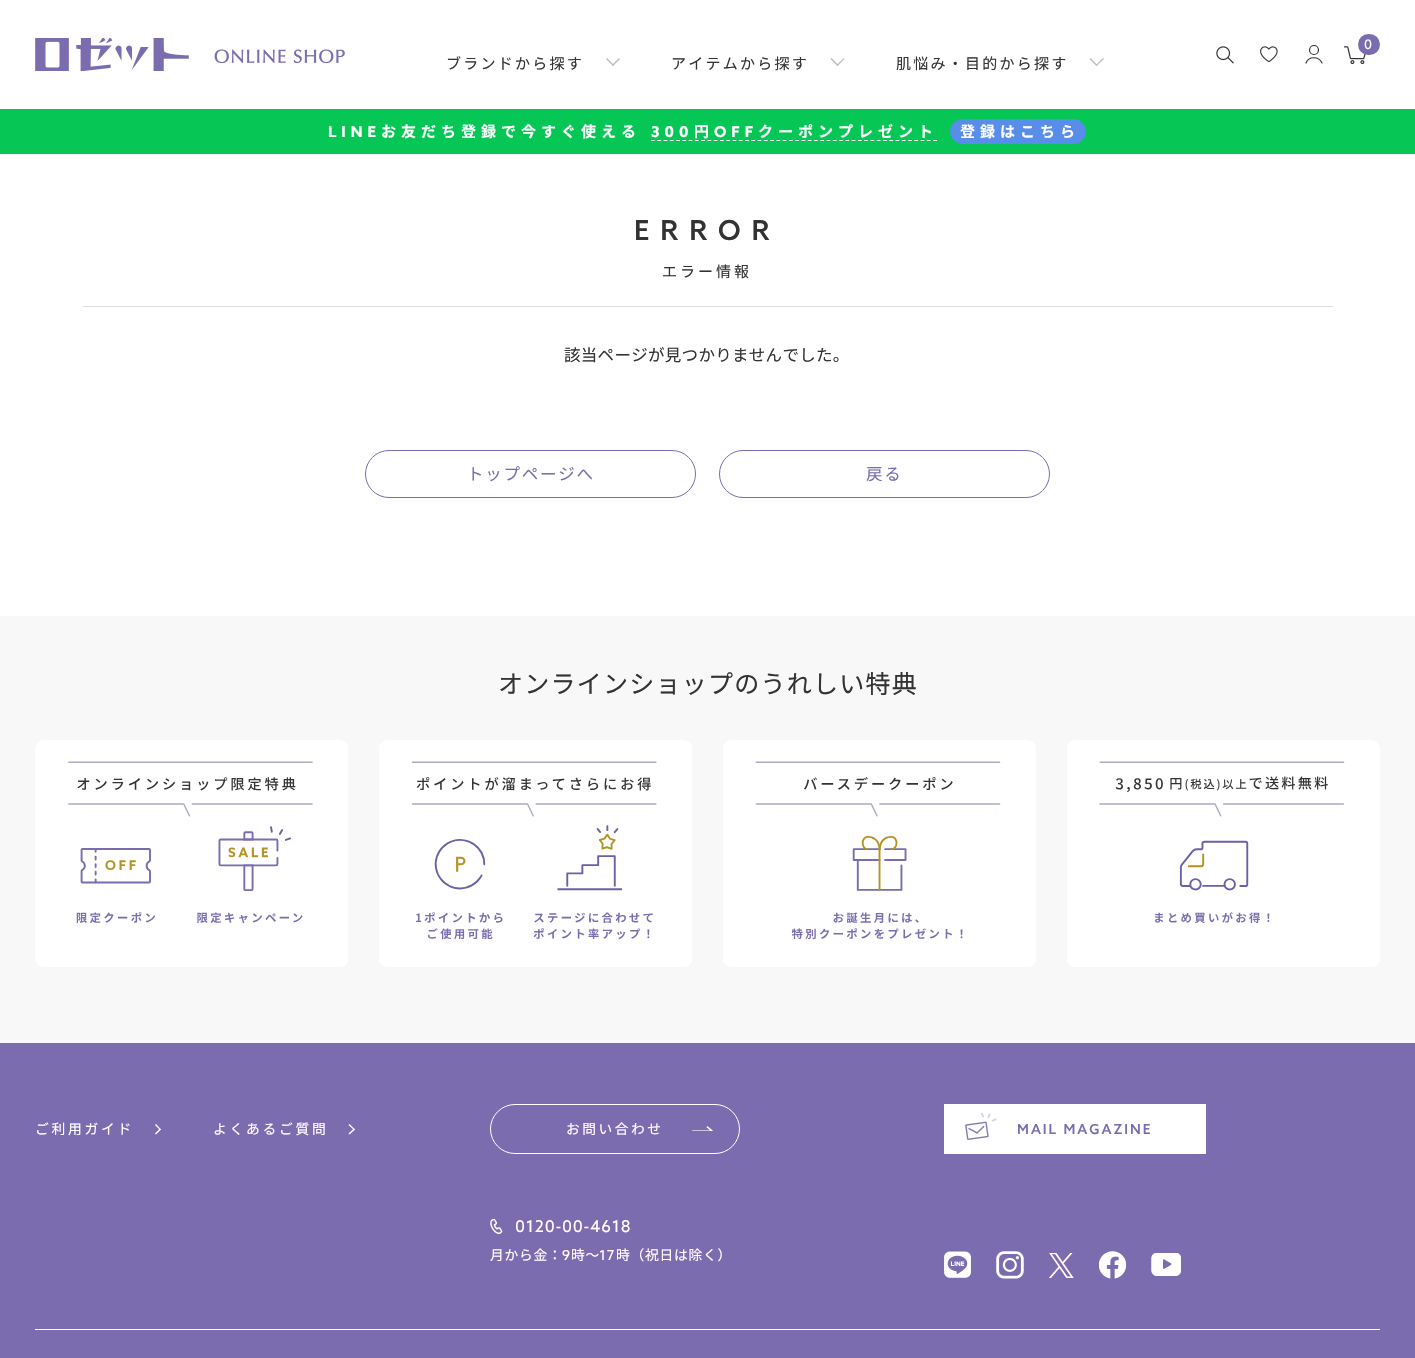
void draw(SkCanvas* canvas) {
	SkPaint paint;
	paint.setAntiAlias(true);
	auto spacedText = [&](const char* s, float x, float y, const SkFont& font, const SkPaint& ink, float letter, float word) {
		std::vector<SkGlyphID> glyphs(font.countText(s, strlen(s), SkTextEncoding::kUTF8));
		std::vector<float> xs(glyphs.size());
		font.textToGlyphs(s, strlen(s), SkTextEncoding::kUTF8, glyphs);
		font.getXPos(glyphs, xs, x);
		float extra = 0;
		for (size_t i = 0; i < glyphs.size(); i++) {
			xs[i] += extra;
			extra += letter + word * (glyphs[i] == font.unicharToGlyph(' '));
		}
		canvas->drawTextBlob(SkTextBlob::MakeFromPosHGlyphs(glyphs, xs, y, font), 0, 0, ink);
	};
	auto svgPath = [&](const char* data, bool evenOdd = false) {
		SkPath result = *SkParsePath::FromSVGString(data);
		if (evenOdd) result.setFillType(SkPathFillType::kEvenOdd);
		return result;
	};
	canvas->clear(0xffffffff);
	canvas->drawImageRect(SkImages::DeferredFromEncodedData(SkData::MakeFromFileName("img1.png")), SkRect::MakeXYWH(35, 38, 310, 33), SkSamplingOptions());
	canvas->drawImageRect(SkImages::DeferredFromEncodedData(SkData::MakeFromFileName("img2.png")), SkRect::MakeXYWH(1216, 46, 18, 18), SkSamplingOptions());
	canvas->drawImageRect(SkImages::DeferredFromEncodedData(SkData::MakeFromFileName("img3.png")), SkRect::MakeXYWH(1260, 46, 18, 17), SkSamplingOptions());
	paint.setStroke(true);
	paint.setStrokeWidth(1.2);
	paint.setStrokeCap(SkPaint::kRound_Cap);
	paint.setStrokeJoin(SkPaint::kRound_Join);
	paint.setColor(0xff333333);
	canvas->drawPath(svgPath("M1306 63C1308.5 56 1319 56 1322 63"), paint);
	paint.setStrokeCap(SkPaint::kButt_Cap);
	paint.setStrokeJoin(SkPaint::kMiter_Join);
	canvas->drawCircle(1314, 50, 4.5, paint);
	canvas->drawImageRect(SkImages::DeferredFromEncodedData(SkData::MakeFromFileName("img4.png")), SkRect::MakeXYWH(1344, 46, 22, 18), SkSamplingOptions());
	paint.setStroke(false);
	paint.setColor(0xff7a6caf);
	canvas->drawRoundRect(SkRect::MakeXYWH(1358, 34, 22, 21), 10.5, 10.5, paint);
	SkFont f1(fontMgr->matchFamilyStyle("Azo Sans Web", SkFontStyle::Normal()), 13);
	f1.setSubpixel(true);
	paint.setColor(0xffffffff);
	spacedText("0", 1364, 49, f1, paint, 1, 0);
	SkFont f2(fontMgr->matchFamilyStyle("Noto Sans JP", SkFontStyle::Normal()), 15);
	f2.setSubpixel(true);
	paint.setColor(0xff333333);
	spacedText("ブランドから探す", 446, 69, f2, paint, 2.25, 0);
	paint.setColor(0xffbbbbbb);
	canvas->drawPath(svgPath("M619 58L620 59L613 66L612 65Z"), paint);
	canvas->drawPath(svgPath("M607 58L614 65L613 66L606 59Z"), paint);
	paint.setColor(0xff333333);
	spacedText("アイテムから探す", 671, 69, f2, paint, 2.25, 0);
	paint.setColor(0xffbbbbbb);
	canvas->drawPath(svgPath("M844 58L844.5 59L837.5 66L836.5 65Z"), paint);
	canvas->drawPath(svgPath("M831.5 58L838.5 65L837.5 66L830.5 59Z"), paint);
	paint.setColor(0xff333333);
	spacedText("肌悩み・目的から探す", 896, 69, f2, paint, 2.25, 0);
	paint.setColor(0xffbbbbbb);
	canvas->drawPath(svgPath("M1103 58L1104 59L1096.5 66L1096 65Z"), paint);
	canvas->drawPath(svgPath("M1090.5 58L1097.5 65L1096.5 66L1089.5 59Z"), paint);
	paint.setColor(0xff06c755);
	canvas->drawRect(SkRect::MakeXYWH(0, 109, 1415, 45), paint);
	SkFont f3(fontMgr->matchFamilyStyle("Azo Sans Web", SkFontStyle::Bold()), 15);
	f3.setSubpixel(true);
	paint.setColor(0xffffffff);
	spacedText("LINE", 328, 137, f3, paint, 5, 0);
	SkFont f4(fontMgr->matchFamilyStyle("Noto Sans JP", SkFontStyle::Bold()), 15);
	f4.setSubpixel(true);
	spacedText("お友だち登録で今すぐ使える", 381, 137, f4, paint, 5, 0);
	spacedText("300", 651, 137, f3, paint, 5, 0);
	paint.setStroke(true);
	paint.setPathEffect(SkDashPathEffect::Make({{3.75f, 2.52f}}, 0));
	canvas->drawPath(svgPath("M651 140.5H937.5"), paint);
	paint.setPathEffect(nullptr);
	paint.setStroke(false);
	spacedText("円", 694, 137, f4, paint, 5, 0);
	spacedText("OFF", 714, 137, f3, paint, 5, 0);
	spacedText("クーポンプレゼント", 758, 137, f4, paint, 5, 0);
	paint.setColor(0xff588de9);
	canvas->drawRoundRect(SkRect::MakeXYWH(950.5, 119.5, 135, 24), 12, 12, paint);
	paint.setStroke(true);
	paint.setStrokeWidth(1);
	canvas->drawRoundRect(SkRect::MakeXYWH(950.5, 119.5, 135, 24), 12, 12, paint);
	paint.setStroke(false);
	paint.setColor(0xffffffff);
	spacedText("登録はこちら", 960, 137, f4, paint, 5, 0);
	paint.setColor(0xffdddddd);
	canvas->drawRect(SkRect::MakeXYWH(83, 306, 1250, 1), paint);
	SkFont f5(fontMgr->matchFamilyStyle("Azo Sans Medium", SkFontStyle(500, SkFontStyle::kNormal_Width, SkFontStyle::kUpright_Slant)), 27.5);
	f5.setSubpixel(true);
	paint.setColor(0xff333333);
	spacedText("ERROR", 634, 240, f5, paint, 11, 0);
	spacedText("エラー情報", 662, 277, f2, paint, 3, 0);
	SkFont f6(fontMgr->matchFamilyStyle("Noto Sans JP", SkFontStyle::Normal()), 16.5);
	f6.setSubpixel(true);
	spacedText("該当ページが見つかりませんでした。", 564, 361, f6, paint, 0.3, 0);
	paint.setStroke(true);
	paint.setColor(0xff7a6caf);
	canvas->drawRoundRect(SkRect::MakeXYWH(365.5, 450.5, 330, 47), 23.5, 23.5, paint);
	paint.setStroke(false);
	spacedText("トップページへ", 467, 480, f6, paint, 1.75, 0);
	paint.setStroke(true);
	canvas->drawRoundRect(SkRect::MakeXYWH(719.5, 450.5, 330, 47), 23.5, 23.5, paint);
	paint.setStroke(false);
	spacedText("戻る", 866, 480, f6, paint, 1.75, 0);
	canvas->drawRect(SkRect::MakeXYWH(0, 1043, 1415, 315), paint);
	paint.setColor(0xfff8f8f8);
	canvas->drawRect(SkRect::MakeXYWH(0, 616, 1415, 427), paint);
	SkFont f7(fontMgr->matchFamilyStyle("Noto Sans JP", SkFontStyle::Normal()), 25);
	f7.setSubpixel(true);
	paint.setColor(0xff333333);
	spacedText("オンラインショップのうれしい特典", 498, 693, f7, paint, 1.25, 0);
	canvas->drawImageRect(SkImages::DeferredFromEncodedData(SkData::MakeFromFileName("img5.png")), SkRect::MakeXYWH(35, 740, 313, 227), SkSamplingOptions());
	canvas->drawImageRect(SkImages::DeferredFromEncodedData(SkData::MakeFromFileName("img6.png")), SkRect::MakeXYWH(379, 740, 313, 227), SkSamplingOptions());
	canvas->drawImageRect(SkImages::DeferredFromEncodedData(SkData::MakeFromFileName("img7.png")), SkRect::MakeXYWH(723, 740, 313, 227), SkSamplingOptions());
	canvas->drawImageRect(SkImages::DeferredFromEncodedData(SkData::MakeFromFileName("img8.png")), SkRect::MakeXYWH(1067, 740, 313, 227), SkSamplingOptions());
	SkFont f8(fontMgr->matchFamilyStyle("Noto Sans JP", SkFontStyle::Normal()), 13.75);
	f8.setSubpixel(true);
	paint.setColor(0xffffffff);
	spacedText("ご利用ガイド", 35, 1134, f8, paint, 2.75, 0);
	canvas->drawPath(svgPath("M156 1124L161 1129.5L160 1130L155 1125Z"), paint);
	canvas->drawPath(svgPath("M160 1128.5L161 1129.5L156 1134.5L155 1133.5Z"), paint);
	spacedText("よくあるご質問", 213, 1134, f8, paint, 2.75, 0);
	canvas->drawPath(svgPath("M349.5 1124L355 1129.5L354 1130L348.5 1125Z"), paint);
	canvas->drawPath(svgPath("M354 1128.5L355 1129.5L349.5 1134.5L348.5 1133.5Z"), paint);
	paint.setStroke(true);
	canvas->drawRoundRect(SkRect::MakeXYWH(490.5, 1104.5, 249, 49), 24.5, 24.5, paint);
	paint.setStroke(false);
	spacedText("お問い合わせ", 566, 1134, f8, paint, 2.5, 0);
	canvas->drawImageRect(SkImages::DeferredFromEncodedData(SkData::MakeFromFileName("img9.png")), SkRect::MakeXYWH(692, 1126, 21, 5), SkSamplingOptions());
	canvas->drawRect(SkRect::MakeXYWH(944, 1104, 262, 50), paint);
	canvas->drawImageRect(SkImages::DeferredFromEncodedData(SkData::MakeFromFileName("img10.png")), SkRect::MakeXYWH(965, 1113, 32, 27), SkSamplingOptions());
	SkFont f9(fontMgr->matchFamilyStyle("Azo Sans Medium", SkFontStyle(500, SkFontStyle::kNormal_Width, SkFontStyle::kUpright_Slant)), 13.75);
	f9.setSubpixel(true);
	paint.setColor(0xff7a6caf);
	spacedText("MAIL MAGAZINE", 1017, 1134, f9, paint, 2, 0);
	canvas->drawImageRect(SkImages::DeferredFromEncodedData(SkData::MakeFromFileName("img11.png")), SkRect::MakeXYWH(490, 1219, 13, 15), SkSamplingOptions());
	SkFont f10(fontMgr->matchFamilyStyle("Azo Sans Web", SkFontStyle::Normal()), 16.25);
	f10.setSubpixel(true);
	paint.setColor(0xffffffff);
	spacedText("0120-00-4618", 515, 1232, f10, paint, 0.75, 0);
	spacedText("月から金：", 490, 1260, f8, paint, 0.75, 0);
	SkFont f11(fontMgr->matchFamilyStyle("Azo Sans Web", SkFontStyle::Normal()), 13.75);
	f11.setSubpixel(true);
	spacedText("9", 562, 1260, f11, paint, 0.75, 0);
	spacedText("時～", 571, 1260, f8, paint, 0.75, 0);
	spacedText("17", 599, 1260, f11, paint, 0.75, 0);
	spacedText("時（祝日は除く）", 616, 1260, f8, paint, 0.75, 0);
	canvas->drawImageRect(SkImages::DeferredFromEncodedData(SkData::MakeFromFileName("img12.png")), SkRect::MakeXYWH(944, 1251, 27, 27), SkSamplingOptions());
	canvas->drawImageRect(SkImages::DeferredFromEncodedData(SkData::MakeFromFileName("img13.png")), SkRect::MakeXYWH(996, 1251, 28, 28), SkSamplingOptions());
	canvas->drawImageRect(SkImages::DeferredFromEncodedData(SkData::MakeFromFileName("img14.png")), SkRect::MakeXYWH(1049, 1253, 25, 25), SkSamplingOptions());
	canvas->drawImageRect(SkImages::DeferredFromEncodedData(SkData::MakeFromFileName("img15.png")), SkRect::MakeXYWH(1099, 1251, 27, 28), SkSamplingOptions());
	canvas->drawImageRect(SkImages::DeferredFromEncodedData(SkData::MakeFromFileName("img16.png")), SkRect::MakeXYWH(1151, 1253, 30, 23), SkSamplingOptions());
	canvas->drawRect(SkRect::MakeXYWH(35, 1329, 1345, 1), paint);
}
